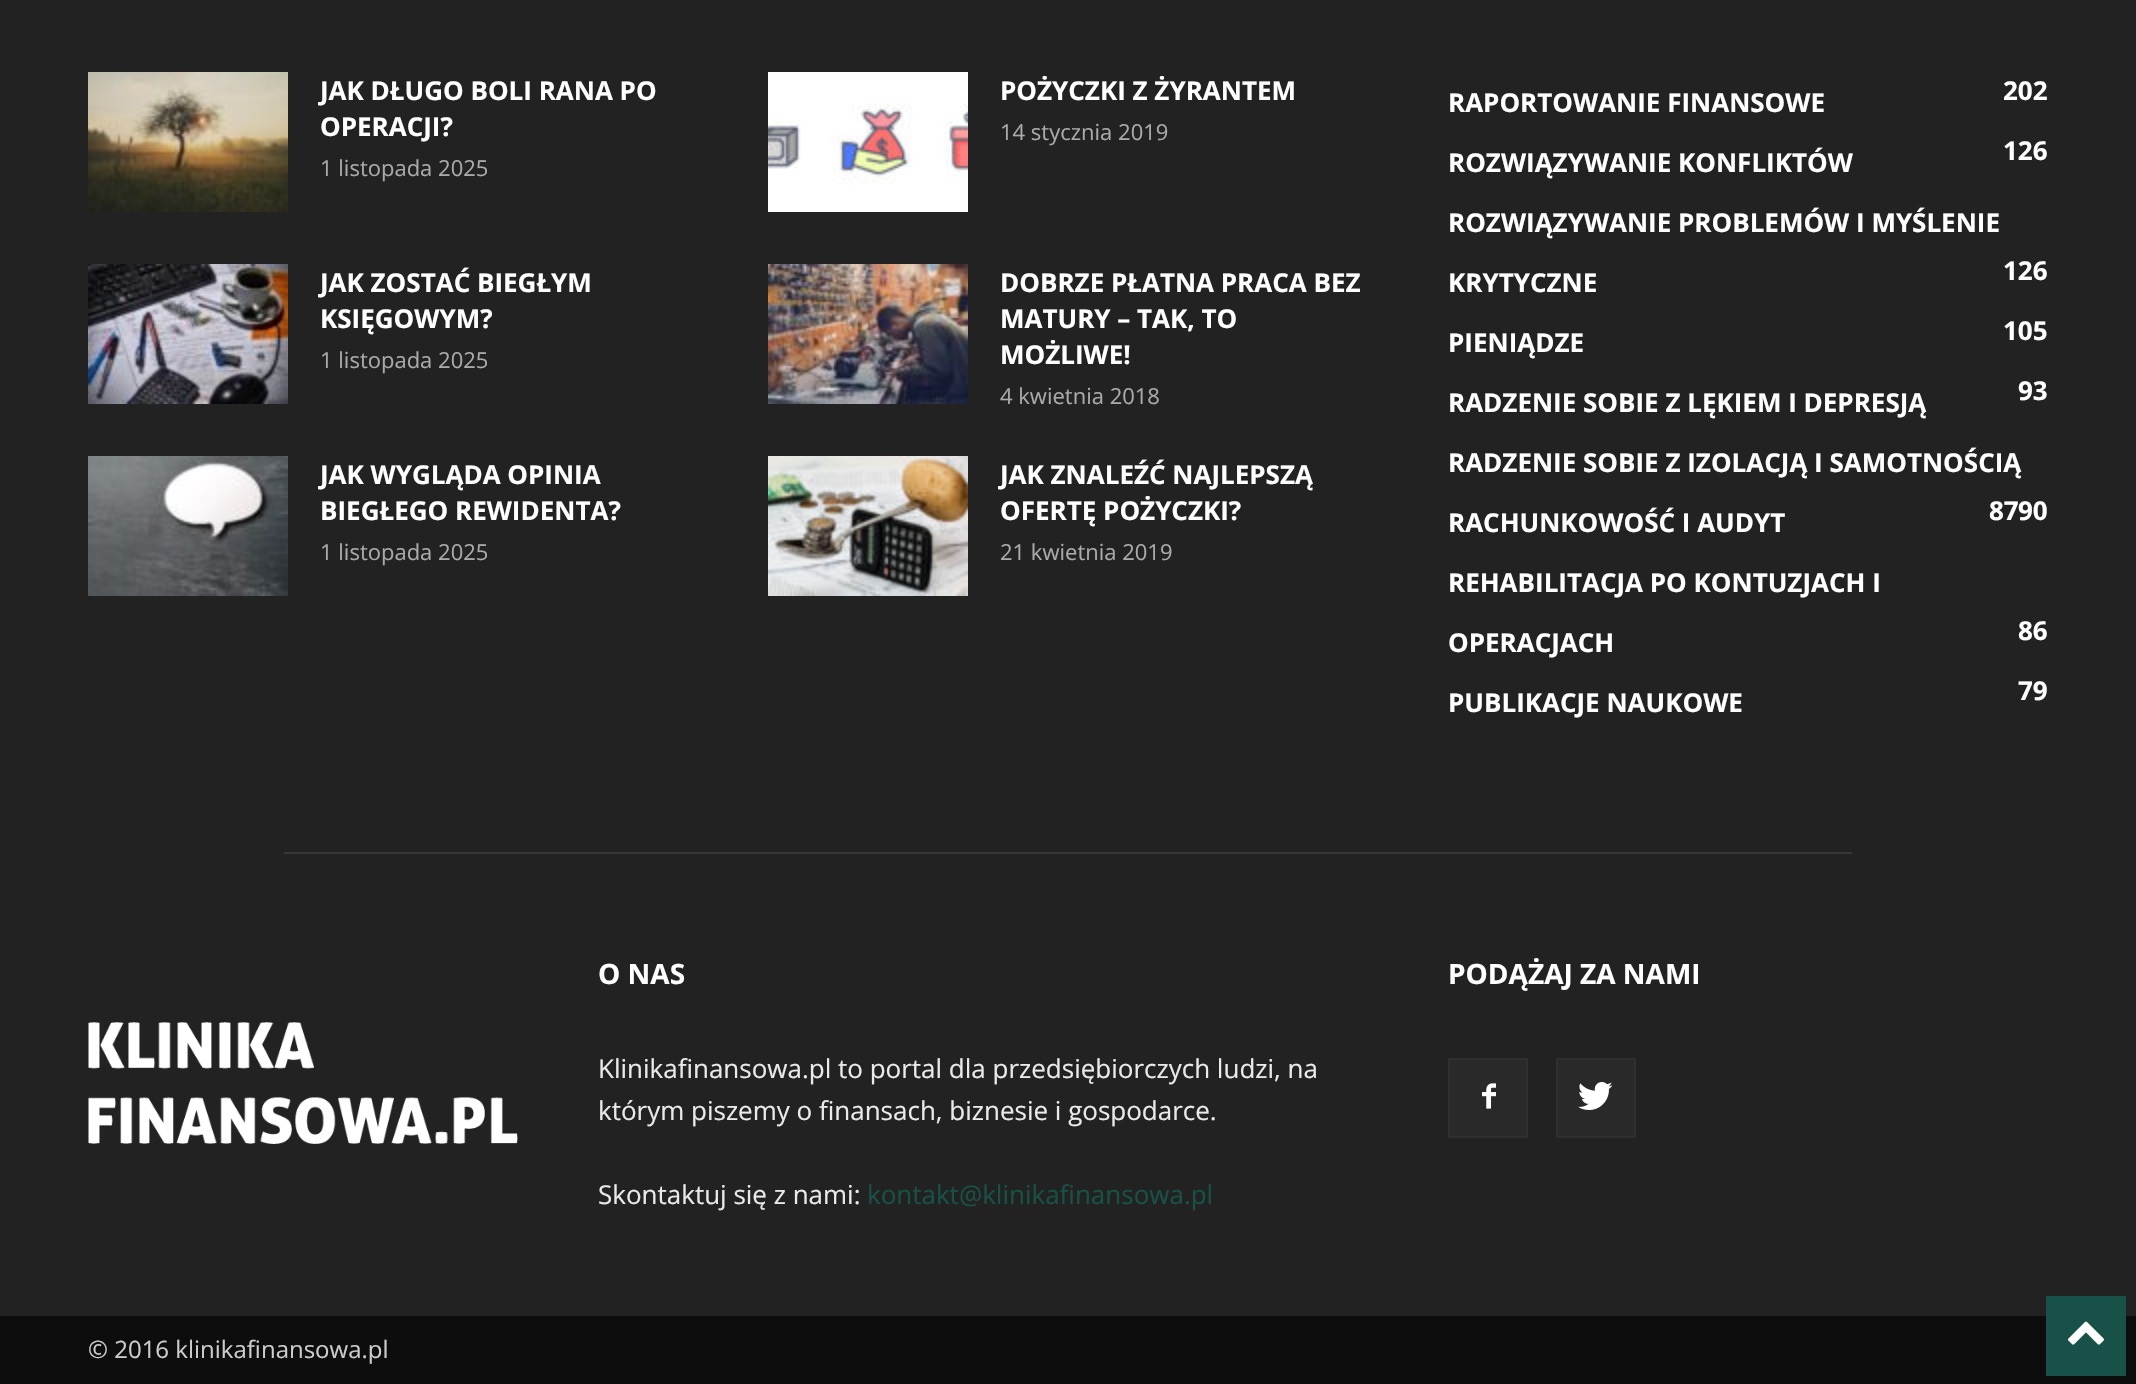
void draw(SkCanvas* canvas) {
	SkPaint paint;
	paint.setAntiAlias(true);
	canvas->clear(0xff0d0d0d);
	paint.setColor(0xff222222);
	canvas->drawRect(SkRect::MakeXYWH(0, 0, 2136, 1316), paint);
	canvas->drawImageRect(SkImages::DeferredFromEncodedData(SkData::MakeFromFileName("img1.png")), SkRect::MakeXYWH(88, 72, 200, 140), SkSamplingOptions());
	SkFont f1(fontMgr->matchFamilyStyle("Open Sans", SkFontStyle::Bold()), 26);
	f1.setSubpixel(true);
	paint.setColor(0xffffffff);
	canvas->drawString("JAK DŁUGO BOLI RANA PO", 320, 100, f1, paint);
	canvas->drawString("OPERACJI?", 320, 136, f1, paint);
	SkFont f2(fontMgr->matchFamilyStyle("Open Sans", SkFontStyle::Normal()), 22);
	f2.setSubpixel(true);
	paint.setColor(0xffaaaaaa);
	canvas->drawString("1 listopada 2025", 320, 176, f2, paint);
	canvas->drawImageRect(SkImages::DeferredFromEncodedData(SkData::MakeFromFileName("img2.png")), SkRect::MakeXYWH(88, 264, 200, 140), SkSamplingOptions());
	paint.setColor(0xffffffff);
	canvas->drawString("JAK ZOSTAĆ BIEGŁYM", 320, 292, f1, paint);
	canvas->drawString("KSIĘGOWYM?", 320, 328, f1, paint);
	paint.setColor(0xffaaaaaa);
	canvas->drawString("1 listopada 2025", 320, 368, f2, paint);
	canvas->drawImageRect(SkImages::DeferredFromEncodedData(SkData::MakeFromFileName("img3.png")), SkRect::MakeXYWH(88, 456, 200, 140), SkSamplingOptions());
	paint.setColor(0xffffffff);
	canvas->drawString("JAK WYGLĄDA OPINIA", 320, 484, f1, paint);
	canvas->drawString("BIEGŁEGO REWIDENTA?", 320, 520, f1, paint);
	paint.setColor(0xffaaaaaa);
	canvas->drawString("1 listopada 2025", 320, 560, f2, paint);
	canvas->drawImageRect(SkImages::DeferredFromEncodedData(SkData::MakeFromFileName("img4.png")), SkRect::MakeXYWH(768, 72, 200, 140), SkSamplingOptions());
	paint.setColor(0xffffffff);
	canvas->drawString("POŻYCZKI Z ŻYRANTEM", 1000, 100, f1, paint);
	paint.setColor(0xffaaaaaa);
	canvas->drawString("14 stycznia 2019", 1000, 140, f2, paint);
	canvas->drawImageRect(SkImages::DeferredFromEncodedData(SkData::MakeFromFileName("img5.png")), SkRect::MakeXYWH(768, 264, 200, 140), SkSamplingOptions());
	paint.setColor(0xffffffff);
	canvas->drawString("DOBRZE PŁATNA PRACA BEZ", 1000, 292, f1, paint);
	canvas->drawString("MATURY – TAK, TO", 1000, 328, f1, paint);
	canvas->drawString("MOŻLIWE!", 1000, 364, f1, paint);
	paint.setColor(0xffaaaaaa);
	canvas->drawString("4 kwietnia 2018", 1000, 404, f2, paint);
	canvas->drawImageRect(SkImages::DeferredFromEncodedData(SkData::MakeFromFileName("img6.png")), SkRect::MakeXYWH(768, 456, 200, 140), SkSamplingOptions());
	paint.setColor(0xffffffff);
	canvas->drawString("JAK ZNALEŹĆ NAJLEPSZĄ", 1000, 484, f1, paint);
	canvas->drawString("OFERTĘ POŻYCZKI?", 1000, 520, f1, paint);
	paint.setColor(0xffaaaaaa);
	canvas->drawString("21 kwietnia 2019", 1000, 560, f2, paint);
	paint.setColor(0xffffffff);
	canvas->drawString("202", 2003, 100, f1, paint);
	canvas->drawString("RAPORTOWANIE FINANSOWE", 1448, 112, f1, paint);
	canvas->drawString("ROZWIĄZYWANIE KONFLIKTÓW", 1448, 172, f1, paint);
	canvas->drawString("126", 2003, 160, f1, paint);
	canvas->drawString("ROZWIĄZYWANIE PROBLEMÓW I MYŚLENIE", 1448, 232, f1, paint);
	canvas->drawString("126", 2003, 280, f1, paint);
	canvas->drawString("KRYTYCZNE", 1448, 292, f1, paint);
	canvas->drawString("105", 2003, 340, f1, paint);
	canvas->drawString("PIENIĄDZE", 1448, 352, f1, paint);
	canvas->drawString("93", 2018, 400, f1, paint);
	canvas->drawString("RADZENIE SOBIE Z LĘKIEM I DEPRESJĄ", 1448, 412, f1, paint);
	canvas->drawString("RADZENIE SOBIE Z IZOLACJĄ I SAMOTNOŚCIĄ", 1448, 472, f1, paint);
	canvas->drawString("90", 2018, 520, f1, paint);
	canvas->drawString("RACHUNKOWOŚĆ I AUDYT", 1448, 532, f1, paint);
	canvas->drawString("87", 1989, 520, f1, paint);
	canvas->drawString("REHABILITACJA PO KONTUZJACH I", 1448, 592, f1, paint);
	canvas->drawString("86", 2018, 640, f1, paint);
	canvas->drawString("OPERACJACH", 1448, 652, f1, paint);
	canvas->drawString("79", 2018, 700, f1, paint);
	canvas->drawString("PUBLIKACJE NAUKOWE", 1448, 712, f1, paint);
	paint.setColor(0xff383838);
	canvas->drawRect(SkRect::MakeXYWH(284, 852, 1568, 2), paint);
	canvas->drawImageRect(SkImages::DeferredFromEncodedData(SkData::MakeFromFileName("img7.png")), SkRect::MakeXYWH(88, 1022, 430, 122), SkSamplingOptions());
	SkFont f3(fontMgr->matchFamilyStyle("Open Sans", SkFontStyle::Bold()), 28);
	f3.setSubpixel(true);
	paint.setColor(0xffffffff);
	canvas->drawString("O NAS", 598, 984, f3, paint);
	SkFont f4(fontMgr->matchFamilyStyle("Open Sans", SkFontStyle::Normal()), 26);
	f4.setSubpixel(true);
	paint.setColor(0xffeaeaea);
	canvas->drawString("Klinikafinansowa.pl to portal dla przedsiębiorczych ludzi, na", 598, 1078, f4, paint);
	canvas->drawString("którym piszemy o finansach, biznesie i gospodarce.", 598, 1120, f4, paint);
	canvas->drawString("Skontaktuj się z nami:", 598, 1204, f4, paint);
	paint.setColor(0xff175147);
	canvas->drawString("kontakt@klinikafinansowa.pl", 867, 1204, f4, paint);
	paint.setColor(0xffffffff);
	canvas->drawString("PODĄŻAJ ZA NAMI", 1448, 984, f3, paint);
	paint.setColor(0xff292929);
	canvas->drawRect(SkRect::MakeXYWH(1450, 1060, 76, 76), paint);
	canvas->drawImageRect(SkImages::DeferredFromEncodedData(SkData::MakeFromFileName("img8.png")), SkRect::MakeXYWH(1482, 1083, 14, 26), SkSamplingOptions());
	paint.setStroke(true);
	paint.setStrokeWidth(2);
	paint.setColor(0xff2f2f2f);
	canvas->drawRect(SkRect::MakeXYWH(1449, 1059, 78, 78), paint);
	paint.setStroke(false);
	paint.setColor(0xff292929);
	canvas->drawRect(SkRect::MakeXYWH(1558, 1060, 76, 76), paint);
	canvas->drawImageRect(SkImages::DeferredFromEncodedData(SkData::MakeFromFileName("img9.png")), SkRect::MakeXYWH(1578, 1082, 35, 28), SkSamplingOptions());
	paint.setStroke(true);
	paint.setColor(0xff2f2f2f);
	canvas->drawRect(SkRect::MakeXYWH(1557, 1059, 78, 78), paint);
	SkFont f5(fontMgr->matchFamilyStyle("Open Sans", SkFontStyle::Normal()), 24);
	f5.setSubpixel(true);
	paint.setStroke(false);
	paint.setColor(0xffcccccc);
	canvas->drawString("© 2016 klinikafinansowa.pl", 88, 1358, f5, paint);
	paint.setColor(0xff175147);
	canvas->drawRect(SkRect::MakeXYWH(2046, 1296, 80, 80), paint);
	canvas->drawImageRect(SkImages::DeferredFromEncodedData(SkData::MakeFromFileName("img10.png")), SkRect::MakeXYWH(2068, 1321, 36, 24), SkSamplingOptions());
}
